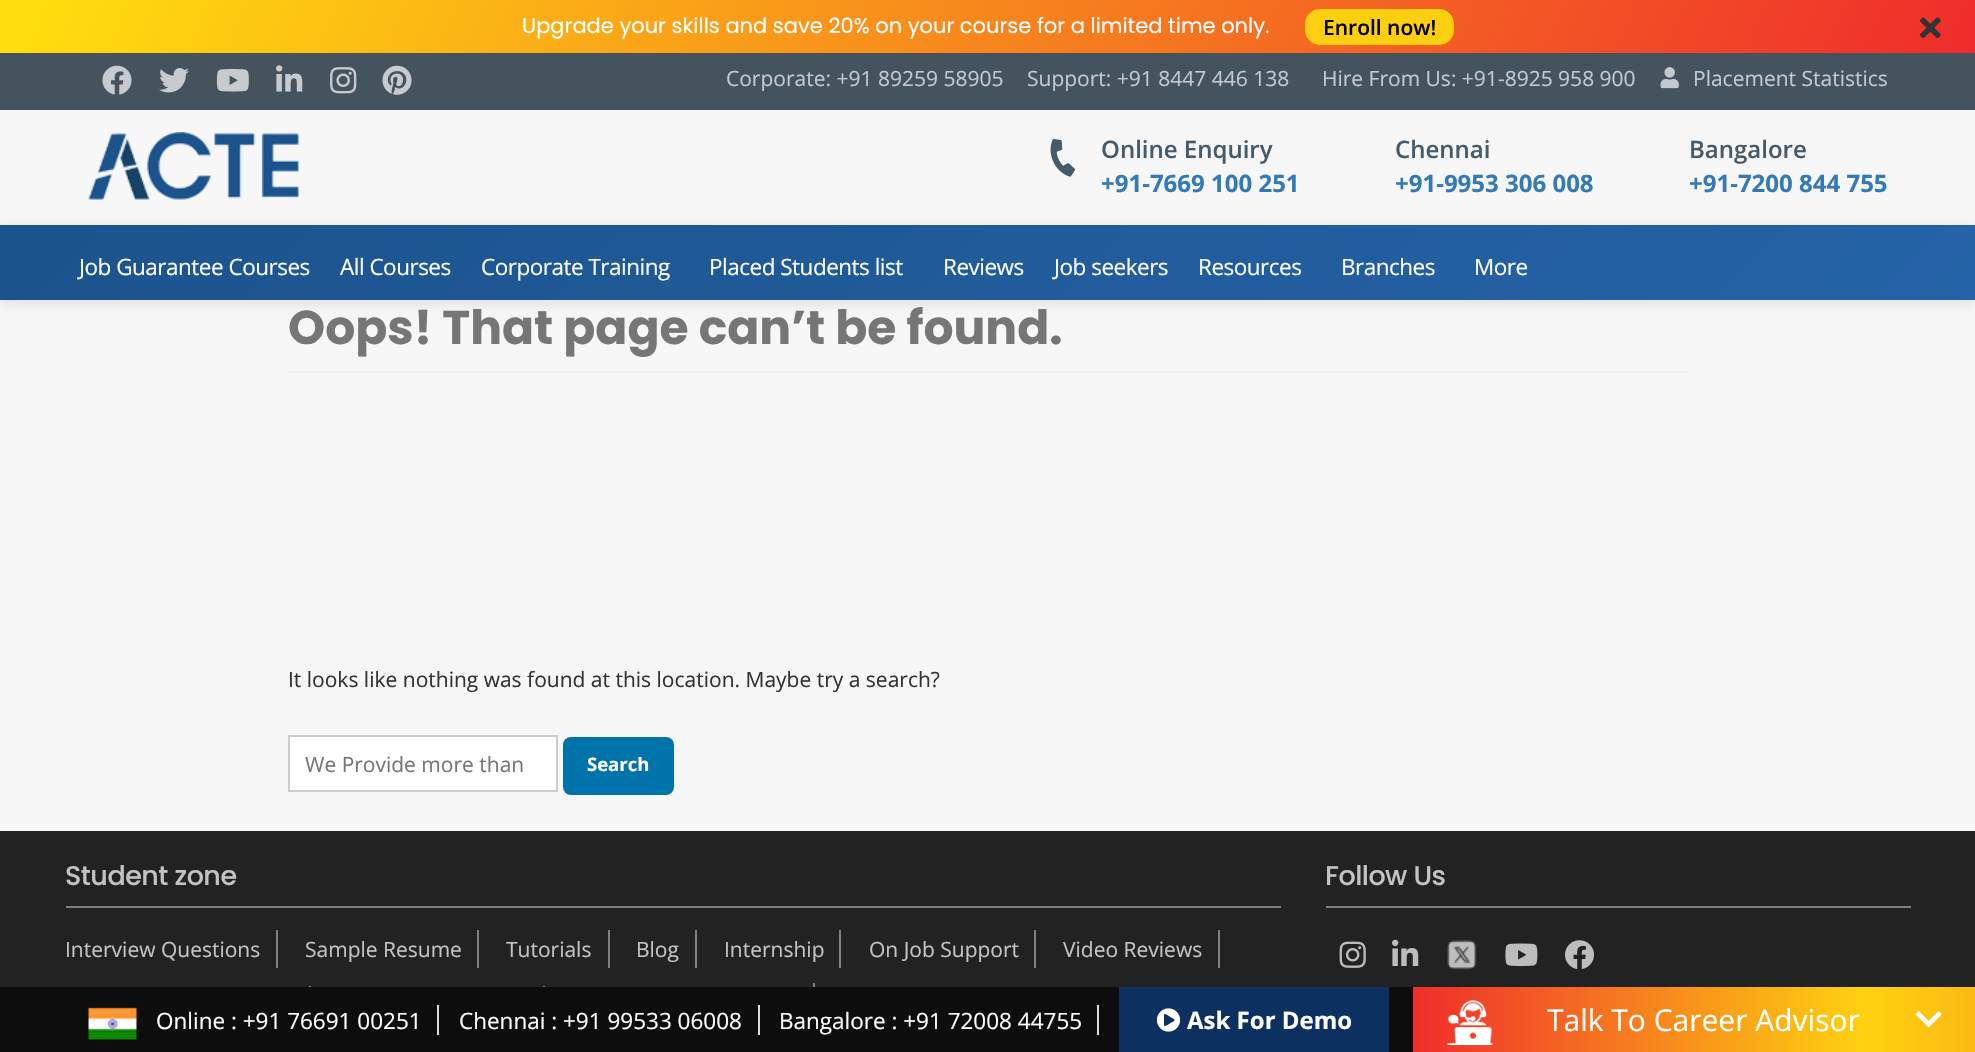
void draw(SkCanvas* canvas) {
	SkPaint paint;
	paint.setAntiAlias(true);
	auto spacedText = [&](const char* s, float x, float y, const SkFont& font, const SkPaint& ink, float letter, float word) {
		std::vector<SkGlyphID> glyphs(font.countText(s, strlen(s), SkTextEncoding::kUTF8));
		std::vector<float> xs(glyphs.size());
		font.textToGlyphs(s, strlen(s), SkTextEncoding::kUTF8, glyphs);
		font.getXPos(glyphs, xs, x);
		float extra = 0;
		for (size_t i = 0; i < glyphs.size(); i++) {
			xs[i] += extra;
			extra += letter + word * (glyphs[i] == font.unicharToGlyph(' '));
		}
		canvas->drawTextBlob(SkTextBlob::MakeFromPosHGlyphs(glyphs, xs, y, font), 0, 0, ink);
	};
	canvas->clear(0xfff7f7f7);
	{
		const SkColor colors[] = {0xffef2c2c, 0xffffdd0e};
		const float stops[] = {0, 0.98};
		const SkPoint ends[] = {{1822, 398}, {154, -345}};
		paint.setShader(SkGradientShader::MakeLinear(ends, colors, stops, 2, SkTileMode::kClamp));
		paint.setAlpha(255);
	}
	canvas->drawRect(SkRect::MakeXYWH(0, 0, 1975, 53), paint);
	SkFont f1(fontMgr->matchFamilyStyle("Poppins", SkFontStyle::Normal()), 21);
	f1.setSubpixel(true);
	paint.setShader(nullptr);
	paint.setColor(0xffffffff);
	canvas->drawString("Upgrade your skills and save 20% on your course for a limited time only.", 522, 33, f1, paint);
	paint.setColor(0xfffecf11);
	canvas->drawRoundRect(SkRect::MakeXYWH(1305, 9, 149, 36), 15, 15, paint);
	SkFont f2(fontMgr->matchFamilyStyle("Open Sans", SkFontStyle(600, SkFontStyle::kNormal_Width, SkFontStyle::kUpright_Slant)), 21);
	f2.setSubpixel(true);
	paint.setColor(0xff000000);
	canvas->drawString("Enroll now!", 1323, 35, f2, paint);
	canvas->drawImageRect(SkImages::DeferredFromEncodedData(SkData::MakeFromFileName("img1.png")), SkRect::MakeXYWH(1920, 17, 21, 21), SkSamplingOptions());
	paint.setColor(0xff45535f);
	canvas->drawRect(SkRect::MakeXYWH(0, 53, 1975, 57), paint);
	canvas->drawImageRect(SkImages::DeferredFromEncodedData(SkData::MakeFromFileName("img2.png")), SkRect::MakeXYWH(102, 65, 30, 30), SkSamplingOptions());
	canvas->drawImageRect(SkImages::DeferredFromEncodedData(SkData::MakeFromFileName("img3.png")), SkRect::MakeXYWH(159, 68, 30, 25), SkSamplingOptions());
	canvas->drawImageRect(SkImages::DeferredFromEncodedData(SkData::MakeFromFileName("img4.png")), SkRect::MakeXYWH(216, 69, 33, 23), SkSamplingOptions());
	canvas->drawImageRect(SkImages::DeferredFromEncodedData(SkData::MakeFromFileName("img5.png")), SkRect::MakeXYWH(276, 65, 27, 27), SkSamplingOptions());
	canvas->drawImageRect(SkImages::DeferredFromEncodedData(SkData::MakeFromFileName("img6.png")), SkRect::MakeXYWH(330, 67, 27, 27), SkSamplingOptions());
	canvas->drawImageRect(SkImages::DeferredFromEncodedData(SkData::MakeFromFileName("img7.png")), SkRect::MakeXYWH(382, 65, 30, 30), SkSamplingOptions());
	SkFont f3(fontMgr->matchFamilyStyle("Open Sans", SkFontStyle::Normal()), 21);
	f3.setSubpixel(true);
	paint.setColor(0xffc4c9cd);
	canvas->drawString("Corporate: +91 89259 58905", 726, 86, f3, paint);
	canvas->drawString("Support: +91 8447 446 138", 1027, 86, f3, paint);
	canvas->drawString("Hire From Us: +91-8925 958 900", 1322, 86, f3, paint);
	canvas->drawImageRect(SkImages::DeferredFromEncodedData(SkData::MakeFromFileName("img8.png")), SkRect::MakeXYWH(1660, 67, 19, 22), SkSamplingOptions());
	canvas->drawString("Placement Statistics", 1693, 86, f3, paint);
	canvas->drawImageRect(SkImages::DeferredFromEncodedData(SkData::MakeFromFileName("img9.png")), SkRect::MakeXYWH(88, 132, 211, 68), SkSamplingOptions());
	canvas->drawImageRect(SkImages::DeferredFromEncodedData(SkData::MakeFromFileName("img10.png")), SkRect::MakeXYWH(1050, 139, 25, 38), SkSamplingOptions());
	SkFont f4(fontMgr->matchFamilyStyle("Open Sans", SkFontStyle(600, SkFontStyle::kNormal_Width, SkFontStyle::kUpright_Slant)), 24);
	f4.setSubpixel(true);
	paint.setColor(0xff455a6b);
	canvas->drawString("Online Enquiry", 1101, 158, f4, paint);
	SkFont f5(fontMgr->matchFamilyStyle("Open Sans", SkFontStyle::Bold()), 24);
	f5.setSubpixel(true);
	paint.setColor(0xff337ab7);
	canvas->drawString("+91-7669 100 251", 1101, 192, f5, paint);
	paint.setColor(0xff455a6b);
	canvas->drawString("Chennai", 1395, 158, f4, paint);
	paint.setColor(0xff337ab7);
	canvas->drawString("+91-9953 306 008", 1395, 192, f5, paint);
	paint.setColor(0xff455a6b);
	canvas->drawString("Bangalore", 1689, 158, f4, paint);
	paint.setColor(0xff337ab7);
	canvas->drawString("+91-7200 844 755", 1689, 192, f5, paint);
	paint.setColor(0x1a000000);
	paint.setMaskFilter(SkMaskFilter::MakeBlur(kNormal_SkBlurStyle, 6));
	canvas->drawRect(SkRect::MakeXYWH(0, 228, 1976, 75), paint);
	paint.setMaskFilter(nullptr);
	{
		const SkColor colors[] = {0xff1b538c, 0xff2563a8};
		const float stops[] = {0, 1};
		const SkPoint ends[] = {{475, -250}, {1500, 775}};
		paint.setShader(SkGradientShader::MakeLinear(ends, colors, stops, 2, SkTileMode::kClamp));
		paint.setAlpha(255);
	}
	canvas->drawRect(SkRect::MakeXYWH(0, 225, 1975, 75), paint);
	SkFont f6(fontMgr->matchFamilyStyle("Open Sans", SkFontStyle::Normal()), 22.5);
	f6.setSubpixel(true);
	paint.setShader(nullptr);
	paint.setColor(0xffffffff);
	spacedText("Job Guarantee Courses", 79, 275, f6, paint, -0.5, 0);
	spacedText("All Courses", 340, 275, f6, paint, -0.5, 0);
	spacedText("Corporate Training", 481, 275, f6, paint, -0.5, 0);
	spacedText("Placed Students list", 709, 275, f6, paint, -0.5, 0);
	spacedText("Reviews", 943, 275, f6, paint, -0.5, 0);
	spacedText("Job seekers", 1054, 275, f6, paint, -0.5, 0);
	spacedText("Resources", 1198, 275, f6, paint, -0.5, 0);
	spacedText("Branches", 1341, 275, f6, paint, -0.5, 0);
	spacedText("More", 1474, 275, f6, paint, -0.5, 0);
	paint.setColor(0xffeeeeee);
	canvas->drawRect(SkRect::MakeXYWH(288, 371, 1400, 2), paint);
	SkFont f7(fontMgr->matchFamilyStyle("Poppins", SkFontStyle::Bold()), 47.25);
	f7.setSubpixel(true);
	paint.setColor(0xff767676);
	canvas->drawString("Oops! That page can’t be found.", 288, 344, f7, paint);
	paint.setColor(0xff333333);
	canvas->drawString("It looks like nothing was found at this location. Maybe try a search?", 288, 687, f3, paint);
	paint.setColor(0xffffffff);
	canvas->drawRect(SkRect::MakeXYWH(289, 736, 268, 55), paint);
	paint.setStroke(true);
	paint.setStrokeWidth(2);
	paint.setColor(0xffcccccc);
	canvas->drawRect(SkRect::MakeXYWH(289, 736, 268, 55), paint);
	paint.setStroke(false);
	paint.setColor(0xff767676);
	canvas->drawString("We Provide more than", 305, 772, f3, paint);
	paint.setColor(0xff0073aa);
	canvas->drawRoundRect(SkRect::MakeXYWH(563, 737, 111, 58), 8, 8, paint);
	SkFont f8(fontMgr->matchFamilyStyle("Open Sans", SkFontStyle::Bold()), 18.5);
	f8.setSubpixel(true);
	paint.setColor(0xffffffff);
	canvas->drawString("Search", 587, 771, f8, paint);
	paint.setColor(0xff222222);
	canvas->drawRect(SkRect::MakeXYWH(0, 831, 1975, 156), paint);
	paint.setColor(0xff808080);
	canvas->drawRect(SkRect::MakeXYWH(66, 906, 1215, 2), paint);
	SkFont f9(fontMgr->matchFamilyStyle("Poppins", SkFontStyle(500, SkFontStyle::kNormal_Width, SkFontStyle::kUpright_Slant)), 27);
	f9.setSubpixel(true);
	paint.setColor(0xffc3c3c3);
	spacedText("Student zone", 65, 885, f9, paint, -0.5, 0);
	paint.setColor(0xff808080);
	canvas->drawRect(SkRect::MakeXYWH(276, 930, 2, 38), paint);
	paint.setColor(0xffc3c3c3);
	canvas->drawString("Interview Questions", 65, 957, f3, paint);
	paint.setColor(0xff808080);
	canvas->drawRect(SkRect::MakeXYWH(477, 930, 2, 38), paint);
	paint.setColor(0xffc3c3c3);
	canvas->drawString("Sample Resume", 305, 957, f3, paint);
	paint.setColor(0xff808080);
	canvas->drawRect(SkRect::MakeXYWH(608, 930, 2, 38), paint);
	paint.setColor(0xffc3c3c3);
	canvas->drawString("Tutorials", 506, 957, f3, paint);
	paint.setColor(0xff808080);
	canvas->drawRect(SkRect::MakeXYWH(695, 930, 2, 38), paint);
	paint.setColor(0xffc3c3c3);
	canvas->drawString("Blog", 636, 957, f3, paint);
	paint.setColor(0xff808080);
	canvas->drawRect(SkRect::MakeXYWH(839, 930, 2, 38), paint);
	paint.setColor(0xffc3c3c3);
	canvas->drawString("Internship", 724, 957, f3, paint);
	paint.setColor(0xff808080);
	canvas->drawRect(SkRect::MakeXYWH(1034, 930, 2, 38), paint);
	paint.setColor(0xffc3c3c3);
	canvas->drawString("On Job Support", 869, 957, f3, paint);
	paint.setColor(0xff808080);
	canvas->drawRect(SkRect::MakeXYWH(1218, 930, 2, 38), paint);
	paint.setColor(0xffc3c3c3);
	canvas->drawString("Video Reviews", 1063, 957, f3, paint);
	paint.setColor(0xff808080);
	canvas->drawRect(SkRect::MakeXYWH(309, 986, 2, 1), paint);
	canvas->drawRect(SkRect::MakeXYWH(543, 986, 2, 1), paint);
	canvas->drawRect(SkRect::MakeXYWH(813, 983, 2, 4), paint);
	canvas->drawRect(SkRect::MakeXYWH(1326, 906, 585, 2), paint);
	paint.setColor(0xffc3c3c3);
	spacedText("Follow Us", 1325, 885, f9, paint, -0.5, 0);
	canvas->drawImageRect(SkImages::DeferredFromEncodedData(SkData::MakeFromFileName("img11.png")), SkRect::MakeXYWH(1339, 941, 27, 27), SkSamplingOptions());
	canvas->drawImageRect(SkImages::DeferredFromEncodedData(SkData::MakeFromFileName("img12.png")), SkRect::MakeXYWH(1392, 939, 27, 27), SkSamplingOptions());
	canvas->drawImageRect(SkImages::DeferredFromEncodedData(SkData::MakeFromFileName("img13.png")), SkRect::MakeXYWH(1447, 940, 30, 30), SkSamplingOptions());
	canvas->drawImageRect(SkImages::DeferredFromEncodedData(SkData::MakeFromFileName("img14.png")), SkRect::MakeXYWH(1505, 943, 33, 23), SkSamplingOptions());
	canvas->drawImageRect(SkImages::DeferredFromEncodedData(SkData::MakeFromFileName("img15.png")), SkRect::MakeXYWH(1565, 940, 29, 29), SkSamplingOptions());
	paint.setColor(0xff0d0d0d);
	canvas->drawRect(SkRect::MakeXYWH(0, 987, 1413, 65), paint);
	canvas->drawImageRect(SkImages::DeferredFromEncodedData(SkData::MakeFromFileName("img16.png")), SkRect::MakeXYWH(88, 1007, 49, 33), SkSamplingOptions());
	paint.setColor(0xffdddddd);
	canvas->drawRect(SkRect::MakeXYWH(437, 1005, 2, 30), paint);
	paint.setColor(0xffffffff);
	canvas->drawString("Online : +91 76691 00251", 156, 1029, f6, paint);
	paint.setColor(0xffdddddd);
	canvas->drawRect(SkRect::MakeXYWH(758, 1005, 2, 30), paint);
	paint.setColor(0xffffffff);
	canvas->drawString("Chennai : +91 99533 06008", 459, 1029, f6, paint);
	paint.setColor(0xffdddddd);
	canvas->drawRect(SkRect::MakeXYWH(1097, 1005, 2, 30), paint);
	paint.setColor(0xffffffff);
	canvas->drawString("Bangalore : +91 72008 44755", 779, 1029, f6, paint);
	paint.setColor(0xff0c3160);
	canvas->drawRect(SkRect::MakeXYWH(1119, 987, 270, 65), paint);
	canvas->drawImageRect(SkImages::DeferredFromEncodedData(SkData::MakeFromFileName("img17.png")), SkRect::MakeXYWH(1156, 1008, 25, 24), SkSamplingOptions());
	paint.setColor(0xffffffff);
	canvas->drawString("Ask For Demo", 1187, 1029, f5, paint);
	{
		const SkColor colors[] = {0xfff57020, 0xfffed210, 0xffef2d2c};
		const float stops[] = {0, 0.5, 1};
		const SkPoint ends[] = {{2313, 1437}, {1413, 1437}};
		paint.setShader(SkGradientShader::MakeLinear(ends, colors, stops, 3, SkTileMode::kClamp));
		paint.setAlpha(255);
	}
	canvas->drawRect(SkRect::MakeXYWH(1413, 987, 562, 65), paint);
	canvas->drawImageRect(SkImages::DeferredFromEncodedData(SkData::MakeFromFileName("img18.png")), SkRect::MakeXYWH(1447, 1000, 46, 46), SkSamplingOptions());
	SkFont f10(fontMgr->matchFamilyStyle("Open Sans", SkFontStyle::Normal()), 30);
	f10.setSubpixel(true);
	paint.setShader(nullptr);
	paint.setColor(0xffffffff);
	canvas->drawString("Talk To Career Advisor", 1547, 1031, f10, paint);
	canvas->drawImageRect(SkImages::DeferredFromEncodedData(SkData::MakeFromFileName("img19.png")), SkRect::MakeXYWH(1915, 1011, 27, 16), SkSamplingOptions());
}
